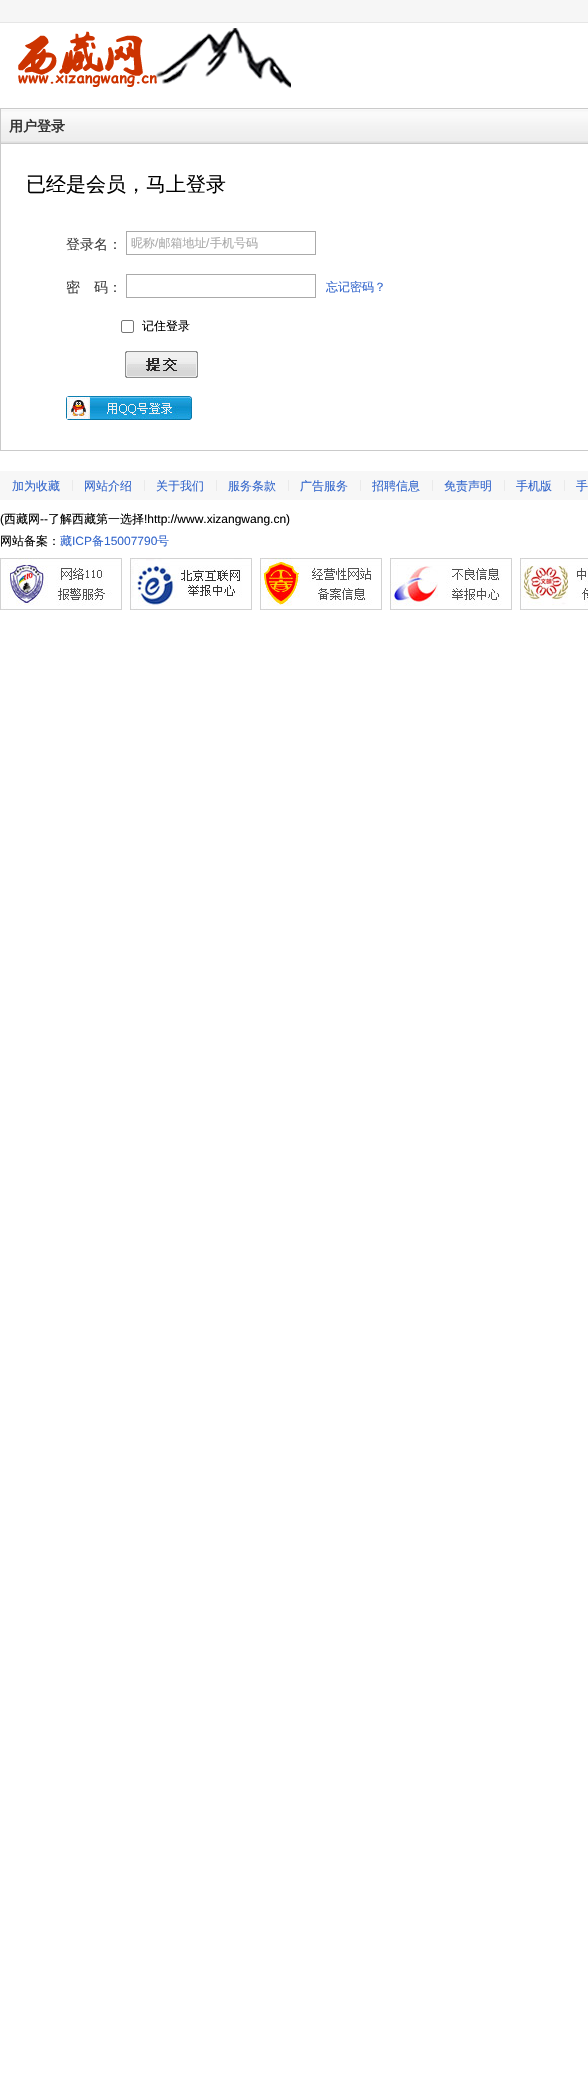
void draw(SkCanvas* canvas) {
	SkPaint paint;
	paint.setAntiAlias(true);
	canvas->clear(0xffffffff);
	paint.setColor(0xfff6f6f6);
	canvas->drawRect(SkRect::MakeXYWH(0, 0, 588, 22), paint);
	paint.setColor(0xffe6e6e6);
	canvas->drawRect(SkRect::MakeXYWH(0, 22, 588, 1), paint);
	canvas->drawImageRect(SkImages::DeferredFromEncodedData(SkData::MakeFromFileName("img1.png")), SkRect::MakeXYWH(18, 28, 273, 60), SkSamplingOptions());
	paint.setStroke(true);
	paint.setStrokeWidth(1);
	paint.setColor(0xffcacaca);
	canvas->drawRect(SkRect::MakeXYWH(0.5, 108.5, 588, 342), paint);
	canvas->drawImageRect(SkImages::DeferredFromEncodedData(SkData::MakeFromFileName("img2.png")), SkRect::MakeXYWH(1, 109, 587, 35), SkSamplingOptions());
	SkFont f1(fontMgr->matchFamilyStyle("WenQuanYi Zen Hei", SkFontStyle::Bold()), 14);
	f1.setSubpixel(true);
	paint.setStroke(false);
	paint.setColor(0xff333333);
	canvas->drawString("用户登录", 9, 131, f1, paint);
	SkFont f2(fontMgr->matchFamilyStyle("WenQuanYi Zen Hei", SkFontStyle(500, SkFontStyle::kNormal_Width, SkFontStyle::kUpright_Slant)), 20);
	f2.setSubpixel(true);
	paint.setColor(0xff000000);
	canvas->drawString("已经是会员，马上登录", 26, 191, f2, paint);
	SkFont f3(fontMgr->matchFamilyStyle("WenQuanYi Zen Hei", SkFontStyle(500, SkFontStyle::kNormal_Width, SkFontStyle::kUpright_Slant)), 14);
	f3.setSubpixel(true);
	paint.setColor(0xff404040);
	canvas->drawString("登录名：", 66, 249, f3, paint);
	paint.setStroke(true);
	paint.setColor(0xffaaaaaa);
	canvas->drawRect(SkRect::MakeXYWH(126.5, 231.5, 189, 23), paint);
	SkFont f4(fontMgr->matchFamilyStyle("WenQuanYi Zen Hei", SkFontStyle(500, SkFontStyle::kNormal_Width, SkFontStyle::kUpright_Slant)), 12);
	f4.setSubpixel(true);
	paint.setStroke(false);
	canvas->drawString("昵称 邮箱地址", 131, 247, f4, paint);
	SkFont f5(fontMgr->matchFamilyStyle("Liberation Sans", SkFontStyle::Normal()), 12);
	f5.setSubpixel(true);
	canvas->drawString("/", 206, 247, f5, paint);
	canvas->drawString("手机号码", 210, 247, f4, paint);
	canvas->drawString("/", 155, 247, f5, paint);
	paint.setColor(0xff404040);
	canvas->drawString("密　码：", 66, 292, f3, paint);
	paint.setStroke(true);
	paint.setColor(0xffaaaaaa);
	canvas->drawRect(SkRect::MakeXYWH(126.5, 274.5, 189, 23), paint);
	paint.setStroke(false);
	paint.setColor(0xff3366cc);
	canvas->drawString("忘记密码？", 326, 291, f4, paint);
	paint.setStroke(true);
	paint.setColor(0xff767676);
	canvas->drawRoundRect(SkRect::MakeXYWH(121.5, 320.5, 12, 12), 1.5, 1.5, paint);
	paint.setStroke(false);
	paint.setColor(0xff000000);
	canvas->drawString("记住登录", 142, 330, f4, paint);
	canvas->drawImageRect(SkImages::DeferredFromEncodedData(SkData::MakeFromFileName("img3.png")), SkRect::MakeXYWH(125, 351, 73, 27), SkSamplingOptions());
	canvas->drawImageRect(SkImages::DeferredFromEncodedData(SkData::MakeFromFileName("img4.png")), SkRect::MakeXYWH(66, 396, 126, 24), SkSamplingOptions());
	paint.setColor(0xfff7f7f7);
	canvas->drawRect(SkRect::MakeXYWH(0, 471, 588, 29), paint);
	paint.setColor(0xff3366cc);
	canvas->drawString("加为收藏", 12, 490, f4, paint);
	paint.setColor(0xffeaeaea);
	canvas->drawRect(SkRect::MakeXYWH(72, 480, 1, 11), paint);
	paint.setColor(0xff3366cc);
	canvas->drawString("网站介绍", 84, 490, f4, paint);
	paint.setColor(0xffeaeaea);
	canvas->drawRect(SkRect::MakeXYWH(144, 480, 1, 11), paint);
	paint.setColor(0xff3366cc);
	canvas->drawString("关于我们", 156, 490, f4, paint);
	paint.setColor(0xffeaeaea);
	canvas->drawRect(SkRect::MakeXYWH(216, 480, 1, 11), paint);
	paint.setColor(0xff3366cc);
	canvas->drawString("服务条款", 228, 490, f4, paint);
	paint.setColor(0xffeaeaea);
	canvas->drawRect(SkRect::MakeXYWH(288, 480, 1, 11), paint);
	paint.setColor(0xff3366cc);
	canvas->drawString("广告服务", 300, 490, f4, paint);
	paint.setColor(0xffeaeaea);
	canvas->drawRect(SkRect::MakeXYWH(360, 480, 1, 11), paint);
	paint.setColor(0xff3366cc);
	canvas->drawString("招聘信息", 372, 490, f4, paint);
	paint.setColor(0xffeaeaea);
	canvas->drawRect(SkRect::MakeXYWH(432, 480, 1, 11), paint);
	paint.setColor(0xff3366cc);
	canvas->drawString("免责声明", 444, 490, f4, paint);
	paint.setColor(0xffeaeaea);
	canvas->drawRect(SkRect::MakeXYWH(504, 480, 1, 11), paint);
	paint.setColor(0xff3366cc);
	canvas->drawString("手机版", 516, 490, f4, paint);
	paint.setColor(0xffeaeaea);
	canvas->drawRect(SkRect::MakeXYWH(564, 480, 1, 11), paint);
	paint.setColor(0xff3366cc);
	canvas->drawString("手", 576, 490, f4, paint);
	paint.setColor(0xff000000);
	canvas->drawString("(", 0, 523, f5, paint);
	canvas->drawString("西藏网", 4, 523, f4, paint);
	canvas->drawString("--", 40, 523, f5, paint);
	canvas->drawString("了解西藏第一选择", 48, 523, f4, paint);
	canvas->drawString("!http://www.xizangwang.cn)", 144, 523, f5, paint);
	canvas->drawString("网站备案：", 0, 545, f4, paint);
	paint.setColor(0xff3366cc);
	canvas->drawString("藏", 60, 545, f4, paint);
	canvas->drawString("ICP", 72, 545, f5, paint);
	canvas->drawString("备", 92, 545, f4, paint);
	canvas->drawString("15007790", 104, 545, f5, paint);
	canvas->drawString("号", 157, 545, f4, paint);
	canvas->drawImageRect(SkImages::DeferredFromEncodedData(SkData::MakeFromFileName("img5.png")), SkRect::MakeXYWH(0, 558, 122, 52), SkSamplingOptions());
	canvas->drawImageRect(SkImages::DeferredFromEncodedData(SkData::MakeFromFileName("img6.png")), SkRect::MakeXYWH(130, 558, 122, 52), SkSamplingOptions());
	canvas->drawImageRect(SkImages::DeferredFromEncodedData(SkData::MakeFromFileName("img7.png")), SkRect::MakeXYWH(260, 558, 122, 52), SkSamplingOptions());
	canvas->drawImageRect(SkImages::DeferredFromEncodedData(SkData::MakeFromFileName("img8.png")), SkRect::MakeXYWH(390, 558, 122, 52), SkSamplingOptions());
	canvas->drawImageRect(SkImages::DeferredFromEncodedData(SkData::MakeFromFileName("img9.png")), SkRect::MakeXYWH(520, 558, 68, 52), SkSamplingOptions());
}
